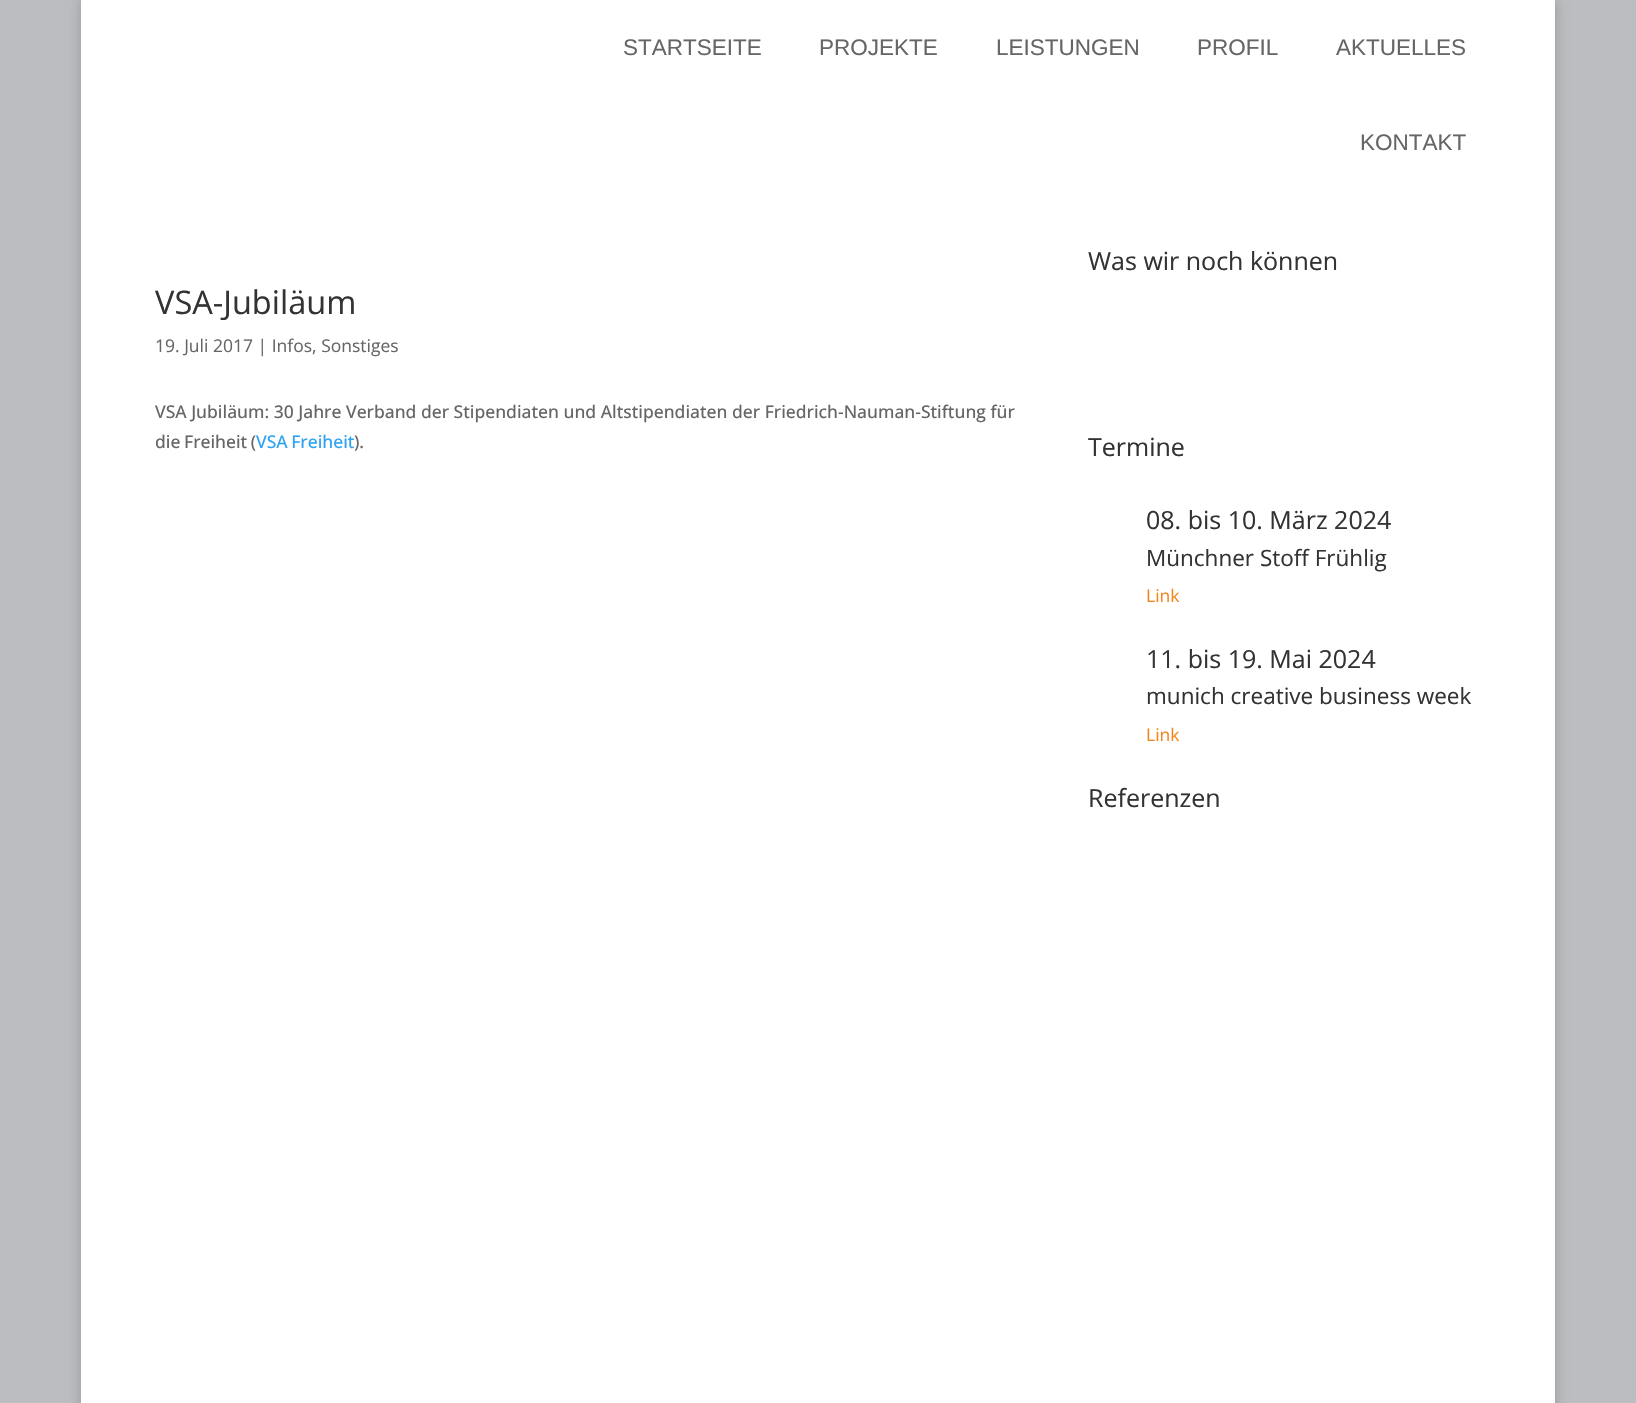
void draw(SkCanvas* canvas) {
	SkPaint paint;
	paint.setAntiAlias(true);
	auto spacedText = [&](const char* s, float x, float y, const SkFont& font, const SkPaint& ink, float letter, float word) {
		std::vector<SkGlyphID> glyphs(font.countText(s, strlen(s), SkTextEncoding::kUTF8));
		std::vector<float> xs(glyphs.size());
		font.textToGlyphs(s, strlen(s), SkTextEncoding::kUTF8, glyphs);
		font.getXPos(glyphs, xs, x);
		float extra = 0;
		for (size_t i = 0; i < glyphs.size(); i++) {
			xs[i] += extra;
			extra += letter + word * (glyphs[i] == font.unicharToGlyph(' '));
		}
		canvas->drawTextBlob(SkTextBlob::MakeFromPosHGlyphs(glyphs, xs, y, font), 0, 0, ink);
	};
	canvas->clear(0xffbcbdc1);
	paint.setColor(0x33000000);
	paint.setMaskFilter(SkMaskFilter::MakeBlur(kNormal_SkBlurStyle, 6));
	canvas->drawRect(SkRect::MakeXYWH(81, 0, 1474, 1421), paint);
	paint.setMaskFilter(nullptr);
	paint.setColor(0xffffffff);
	canvas->drawRect(SkRect::MakeXYWH(81, 0, 1474, 1403), paint);
	SkFont f1(fontMgr->matchFamilyStyle("Liberation Sans", SkFontStyle::Normal()), 22.5);
	f1.setSubpixel(true);
	paint.setColor(0xff666666);
	canvas->drawString("STARTSEITE", 623, 55, f1, paint);
	canvas->drawString("PROJEKTE", 819, 55, f1, paint);
	canvas->drawString("LEISTUNGEN", 996, 55, f1, paint);
	canvas->drawString("PROFIL", 1197, 55, f1, paint);
	canvas->drawString("AKTUELLES", 1336, 55, f1, paint);
	canvas->drawString("KONTAKT", 1360, 150, f1, paint);
	SkFont f2(fontMgr->matchFamilyStyle("Open Sans", SkFontStyle::Normal()), 32.5);
	f2.setSubpixel(true);
	paint.setColor(0xff333333);
	canvas->drawString("VSA-Jubiläum", 155, 314, f2, paint);
	SkFont f3(fontMgr->matchFamilyStyle("Open Sans", SkFontStyle::Normal()), 17.5);
	f3.setSubpixel(true);
	paint.setColor(0xff666666);
	canvas->drawString("19. Juli 2017 | Infos, Sonstiges", 155, 352, f3, paint);
	SkFont f4(fontMgr->matchFamilyStyle("Open Sans", SkFontStyle(500, SkFontStyle::kNormal_Width, SkFontStyle::kUpright_Slant)), 17.5);
	f4.setSubpixel(true);
	canvas->drawString("VSA Jubiläum: 30 Jahre Verband der Stipendiaten und Altstipendiaten der Friedrich-Nauman-Stiftung für", 155, 418, f4, paint);
	spacedText("die Freiheit (", 155, 448, f4, paint, 0, -1);
	paint.setColor(0xff2ea3f2);
	spacedText("VSA Freiheit", 256, 448, f4, paint, 0, -1);
	paint.setColor(0xff666666);
	canvas->drawString(").", 354, 448, f4, paint);
	SkFont f5(fontMgr->matchFamilyStyle("Open Sans", SkFontStyle::Normal()), 25);
	f5.setSubpixel(true);
	paint.setColor(0xff333333);
	canvas->drawString("Was wir noch können", 1088, 270, f5, paint);
	canvas->drawString("Termine", 1088, 456, f5, paint);
	canvas->drawString("08. bis 10. März 2024", 1146, 529, f5, paint);
	SkFont f6(fontMgr->matchFamilyStyle("Open Sans", SkFontStyle::Normal()), 22.5);
	f6.setSubpixel(true);
	canvas->drawString("Münchner Stoff Frühlig", 1146, 566, f6, paint);
	paint.setColor(0xfff48619);
	canvas->drawString("Link", 1146, 602, f3, paint);
	paint.setColor(0xff333333);
	canvas->drawString("11. bis 19. Mai 2024", 1146, 668, f5, paint);
	canvas->drawString("munich creative business week", 1146, 704, f6, paint);
	paint.setColor(0xfff48619);
	canvas->drawString("Link", 1146, 741, f3, paint);
	paint.setColor(0xff333333);
	canvas->drawString("Referenzen", 1088, 807, f5, paint);
}
